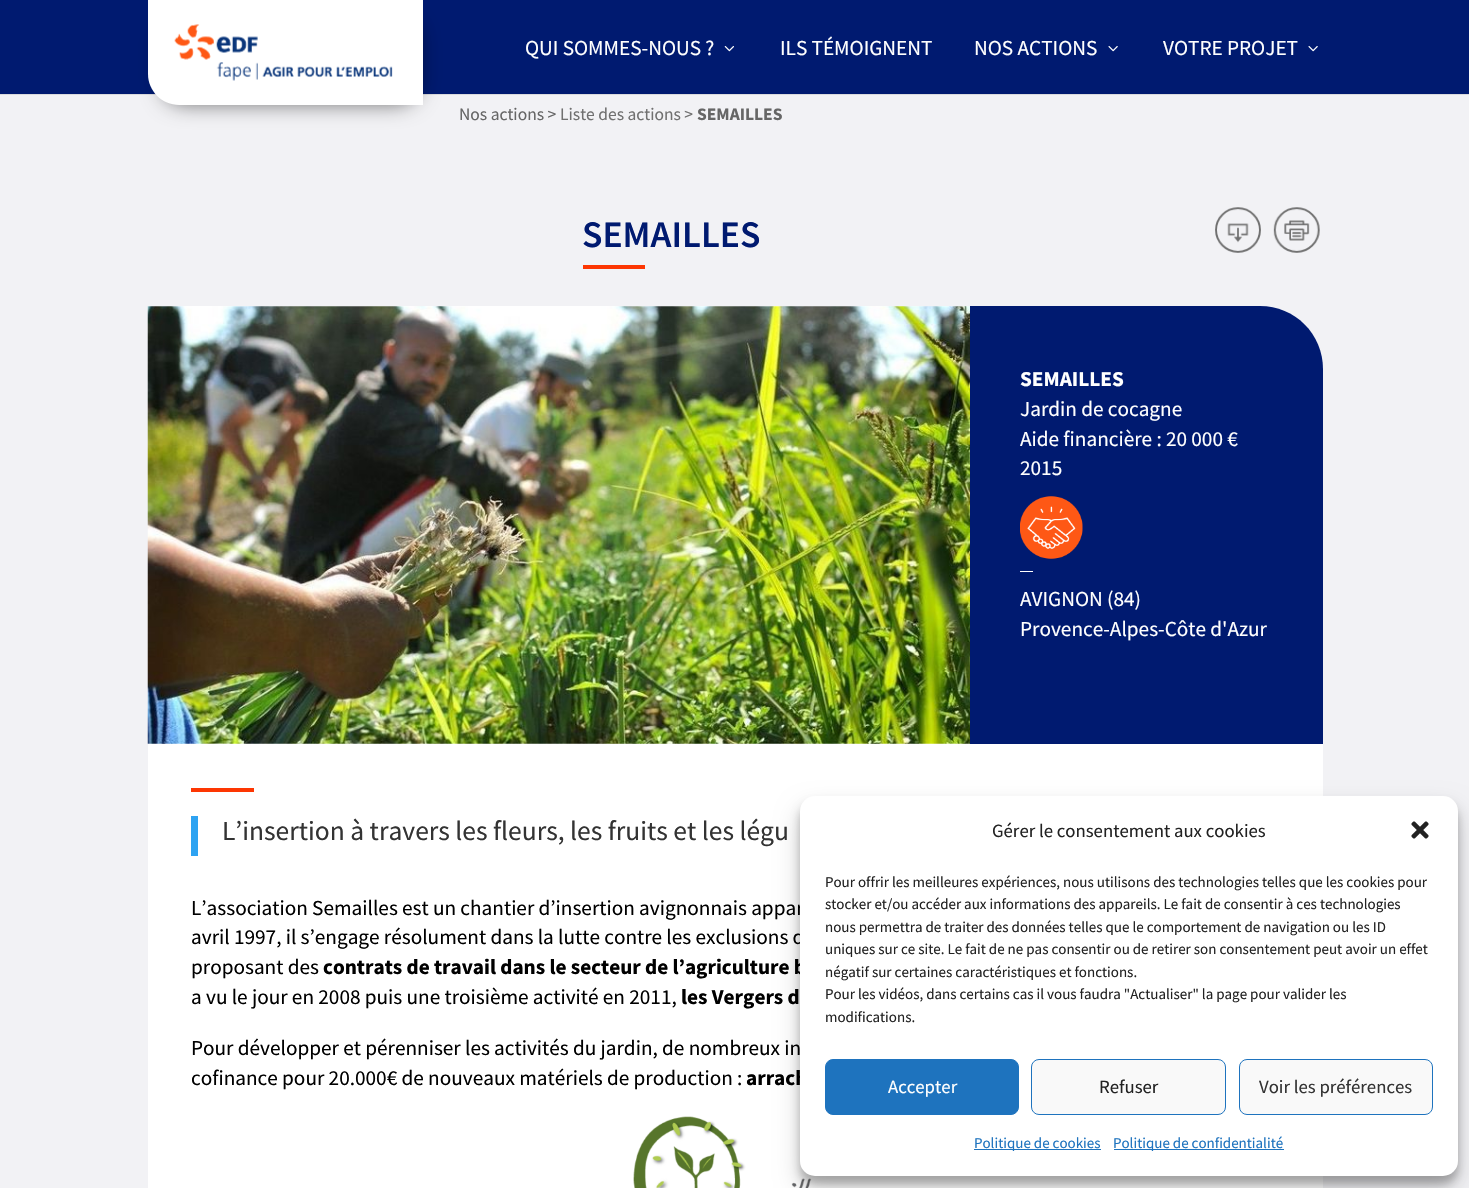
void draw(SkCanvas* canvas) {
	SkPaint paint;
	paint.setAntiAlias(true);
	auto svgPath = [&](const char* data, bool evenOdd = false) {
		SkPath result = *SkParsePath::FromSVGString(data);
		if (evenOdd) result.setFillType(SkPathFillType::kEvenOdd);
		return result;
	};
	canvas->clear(0xfff2f2f5);
	paint.setColor(0xffdadadd);
	canvas->drawRect(SkRect::MakeXYWH(0, 94, 1469, 1), paint);
	paint.setColor(0xff001a70);
	canvas->drawRect(SkRect::MakeXYWH(0, 0, 1469, 94), paint);
	paint.setColor(0x99000000);
	paint.setMaskFilter(SkMaskFilter::MakeBlur(kNormal_SkBlurStyle, 11));
	canvas->drawRoundRect(SkRect::MakeXYWH(163, 18, 255, 85), 21, 21, paint);
	paint.setMaskFilter(nullptr);
	paint.setColor(0xffffffff);
	canvas->drawPath(svgPath("M148 0H423V105H179C162 105 148 91 148 74Z"), paint);
	canvas->drawImageRect(SkImages::DeferredFromEncodedData(SkData::MakeFromFileName("img1.png")), SkRect::MakeXYWH(174, 24, 219, 57), SkSamplingOptions());
	SkFont f1(fontMgr->matchFamilyStyle("Source Sans Pro", SkFontStyle::Normal()), 21.25);
	f1.setSubpixel(true);
	canvas->drawString("QUI SOMMES-NOUS ?", 525, 55, f1, paint);
	canvas->drawImageRect(SkImages::DeferredFromEncodedData(SkData::MakeFromFileName("img2.png")), SkRect::MakeXYWH(724, 46, 10, 6), SkSamplingOptions());
	canvas->drawString("ILS TÉMOIGNENT", 780, 55, f1, paint);
	canvas->drawString("NOS ACTIONS", 974, 55, f1, paint);
	canvas->drawImageRect(SkImages::DeferredFromEncodedData(SkData::MakeFromFileName("img3.png")), SkRect::MakeXYWH(1108, 46, 10, 6), SkSamplingOptions());
	canvas->drawString("VOTRE PROJET", 1163, 55, f1, paint);
	canvas->drawImageRect(SkImages::DeferredFromEncodedData(SkData::MakeFromFileName("img3.png")), SkRect::MakeXYWH(1308, 46, 10, 6), SkSamplingOptions());
	SkFont f2(fontMgr->matchFamilyStyle("Source Sans Pro", SkFontStyle::Normal()), 17.5);
	f2.setSubpixel(true);
	paint.setColor(0xff666666);
	canvas->drawString("Nos actions >", 459, 120, f2, paint);
	paint.setColor(0xff707070);
	canvas->drawString("Liste des actions >", 560, 120, f2, paint);
	SkFont f3(fontMgr->matchFamilyStyle("Source Sans Pro", SkFontStyle::Bold()), 17.5);
	f3.setSubpixel(true);
	paint.setColor(0xff666666);
	canvas->drawString("SEMAILLES", 697, 120, f3, paint);
	canvas->drawImageRect(SkImages::DeferredFromEncodedData(SkData::MakeFromFileName("img4.png")), SkRect::MakeXYWH(1215, 207, 46, 46), SkSamplingOptions());
	canvas->drawImageRect(SkImages::DeferredFromEncodedData(SkData::MakeFromFileName("img5.png")), SkRect::MakeXYWH(1273, 207, 47, 46), SkSamplingOptions());
	SkFont f4(fontMgr->matchFamilyStyle("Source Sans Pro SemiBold", SkFontStyle(600, SkFontStyle::kNormal_Width, SkFontStyle::kUpright_Slant)), 37.5);
	f4.setSubpixel(true);
	paint.setColor(0xff001a70);
	canvas->drawString("SEMAILLES", 582, 247, f4, paint);
	paint.setColor(0xfffd3602);
	canvas->drawRect(SkRect::MakeXYWH(583, 265, 62, 4), paint);
	paint.setColor(0xffffffff);
	canvas->drawPath(svgPath("M148 306H1260C1295 306 1323 334 1323 369V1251H148Z"), paint);
	canvas->drawImageRect(SkImages::DeferredFromEncodedData(SkData::MakeFromFileName("img6.png")), SkRect::MakeXYWH(147, 306, 823, 438), SkSamplingOptions());
	paint.setColor(0xff001a70);
	canvas->drawPath(svgPath("M970 306H1260C1295 306 1323 334 1323 369V744H970Z"), paint);
	SkFont f5(fontMgr->matchFamilyStyle("Source Sans Pro", SkFontStyle::Bold()), 21.25);
	f5.setSubpixel(true);
	paint.setColor(0xffffffff);
	canvas->drawString("SEMAILLES", 1020, 386, f5, paint);
	canvas->drawString("Jardin de cocagne", 1020, 416, f1, paint);
	canvas->drawString("Aide financière : 20 000 €", 1020, 446, f1, paint);
	canvas->drawString("2015", 1020, 475, f1, paint);
	canvas->drawImageRect(SkImages::DeferredFromEncodedData(SkData::MakeFromFileName("img7.png")), SkRect::MakeXYWH(1020, 496, 63, 63), SkSamplingOptions());
	canvas->drawRect(SkRect::MakeXYWH(1020, 571, 13, 1), paint);
	canvas->drawString("AVIGNON (84)", 1020, 606, f1, paint);
	canvas->drawString("Provence-Alpes-Côte d'Azur", 1020, 636, f1, paint);
	paint.setColor(0xfffd3602);
	canvas->drawRect(SkRect::MakeXYWH(191, 788, 63, 4), paint);
	paint.setColor(0xff2ea3f2);
	canvas->drawRect(SkRect::MakeXYWH(191, 816, 7, 40), paint);
	SkFont f6(fontMgr->matchFamilyStyle("Source Sans Pro", SkFontStyle::Normal()), 27.5);
	f6.setSubpixel(true);
	paint.setColor(0xff333333);
	canvas->drawString("L’insertion à travers les fleurs, les fruits et les légu", 222, 840, f6, paint);
	paint.setColor(0xff000000);
	canvas->drawString("L’association Semailles est un chantier d’insertion avignonnais appar", 191, 915, f1, paint);
	canvas->drawString("avril 1997, il s’engage résolument dans la lutte contre les exclusions d", 191, 944, f1, paint);
	canvas->drawString("proposant des", 191, 974, f1, paint);
	canvas->drawString("contrats de travail dans le secteur de l’agriculture b", 323, 974, f5, paint);
	canvas->drawString("a vu le jour en 2008 puis une troisième activité en 2011,", 191, 1004, f1, paint);
	canvas->drawString("les Vergers d", 681, 1004, f5, paint);
	canvas->drawString("Pour développer et pérenniser les activités du jardin, de nombreux in", 191, 1055, f1, paint);
	canvas->drawString("cofinance pour 20.000€ de nouveaux matériels de production :", 191, 1085, f1, paint);
	canvas->drawString("arrach", 746, 1085, f5, paint);
	canvas->drawImageRect(SkImages::DeferredFromEncodedData(SkData::MakeFromFileName("img8.png")), SkRect::MakeXYWH(633, 1116, 179, 72), SkSamplingOptions());
	paint.setColor(0x3b000000);
	paint.setMaskFilter(SkMaskFilter::MakeBlur(kNormal_SkBlurStyle, 4));
	canvas->drawRoundRect(SkRect::MakeXYWH(800, 804, 658, 380), 15, 15, paint);
	paint.setMaskFilter(nullptr);
	paint.setColor(0x30000000);
	paint.setMaskFilter(SkMaskFilter::MakeBlur(kNormal_SkBlurStyle, 12.5));
	canvas->drawRoundRect(SkRect::MakeXYWH(800, 809, 658, 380), 15, 15, paint);
	paint.setMaskFilter(nullptr);
	paint.setColor(0xffffffff);
	canvas->drawRoundRect(SkRect::MakeXYWH(800, 796, 658, 380), 15, 15, paint);
	SkFont f7(fontMgr->matchFamilyStyle("Source Sans Pro", SkFontStyle::Normal()), 18.75);
	f7.setSubpixel(true);
	paint.setColor(0xff222222);
	canvas->drawString("Gérer le consentement aux cookies", 992, 837, f7, paint);
	canvas->drawImageRect(SkImages::DeferredFromEncodedData(SkData::MakeFromFileName("img9.png")), SkRect::MakeXYWH(1411, 821, 18, 18), SkSamplingOptions());
	SkFont f8(fontMgr->matchFamilyStyle("Source Sans Pro", SkFontStyle::Normal()), 15);
	f8.setSubpixel(true);
	canvas->drawString("Pour offrir les meilleures expériences, nous utilisons des technologies telles que les cookies pour", 825, 887, f8, paint);
	canvas->drawString("stocker et/ou accéder aux informations des appareils. Le fait de consentir à ces technologies", 825, 909, f8, paint);
	canvas->drawString("nous permettra de traiter des données telles que le comportement de navigation ou les ID", 825, 932, f8, paint);
	canvas->drawString("uniques sur ce site. Le fait de ne pas consentir ou de retirer son consentement peut avoir un effet", 825, 954, f8, paint);
	canvas->drawString("négatif sur certaines caractéristiques et fonctions.", 825, 977, f8, paint);
	canvas->drawString("Pour les vidéos, dans certains cas il vous faudra \"Actualiser\" la page pour valider les", 825, 999, f8, paint);
	canvas->drawString("modifications.", 825, 1022, f8, paint);
	paint.setColor(0xff1e73be);
	canvas->drawRoundRect(SkRect::MakeXYWH(825.5, 1059.5, 193, 55), 7.5, 7.5, paint);
	paint.setStroke(true);
	paint.setStrokeWidth(1);
	canvas->drawRoundRect(SkRect::MakeXYWH(825.5, 1059.5, 193, 55), 7.5, 7.5, paint);
	paint.setStroke(false);
	paint.setColor(0xffffffff);
	canvas->drawString("Accepter", 888, 1093, f7, paint);
	paint.setColor(0xfff9f9f9);
	canvas->drawRoundRect(SkRect::MakeXYWH(1031.5, 1059.5, 194, 55), 7.5, 7.5, paint);
	paint.setStroke(true);
	paint.setColor(0xff1e73be);
	canvas->drawRoundRect(SkRect::MakeXYWH(1031.5, 1059.5, 194, 55), 7.5, 7.5, paint);
	paint.setStroke(false);
	paint.setColor(0xff222222);
	canvas->drawString("Refuser", 1099, 1093, f7, paint);
	paint.setColor(0xfff9f9f9);
	canvas->drawRoundRect(SkRect::MakeXYWH(1239.5, 1059.5, 193, 55), 7.5, 7.5, paint);
	paint.setStroke(true);
	paint.setColor(0xff1e73be);
	canvas->drawRoundRect(SkRect::MakeXYWH(1239.5, 1059.5, 193, 55), 7.5, 7.5, paint);
	paint.setStroke(false);
	paint.setColor(0xff333333);
	canvas->drawString("Voir les préférences", 1259, 1093, f7, paint);
	paint.setColor(0xff1e73be);
	canvas->drawRect(SkRect::MakeXYWH(974, 1149, 127, 1), paint);
	canvas->drawString("Politique de cookies", 974, 1148, f8, paint);
	canvas->drawRect(SkRect::MakeXYWH(1114, 1149, 170, 1), paint);
	canvas->drawString("Politique de confidentialité", 1113, 1148, f8, paint);
}
